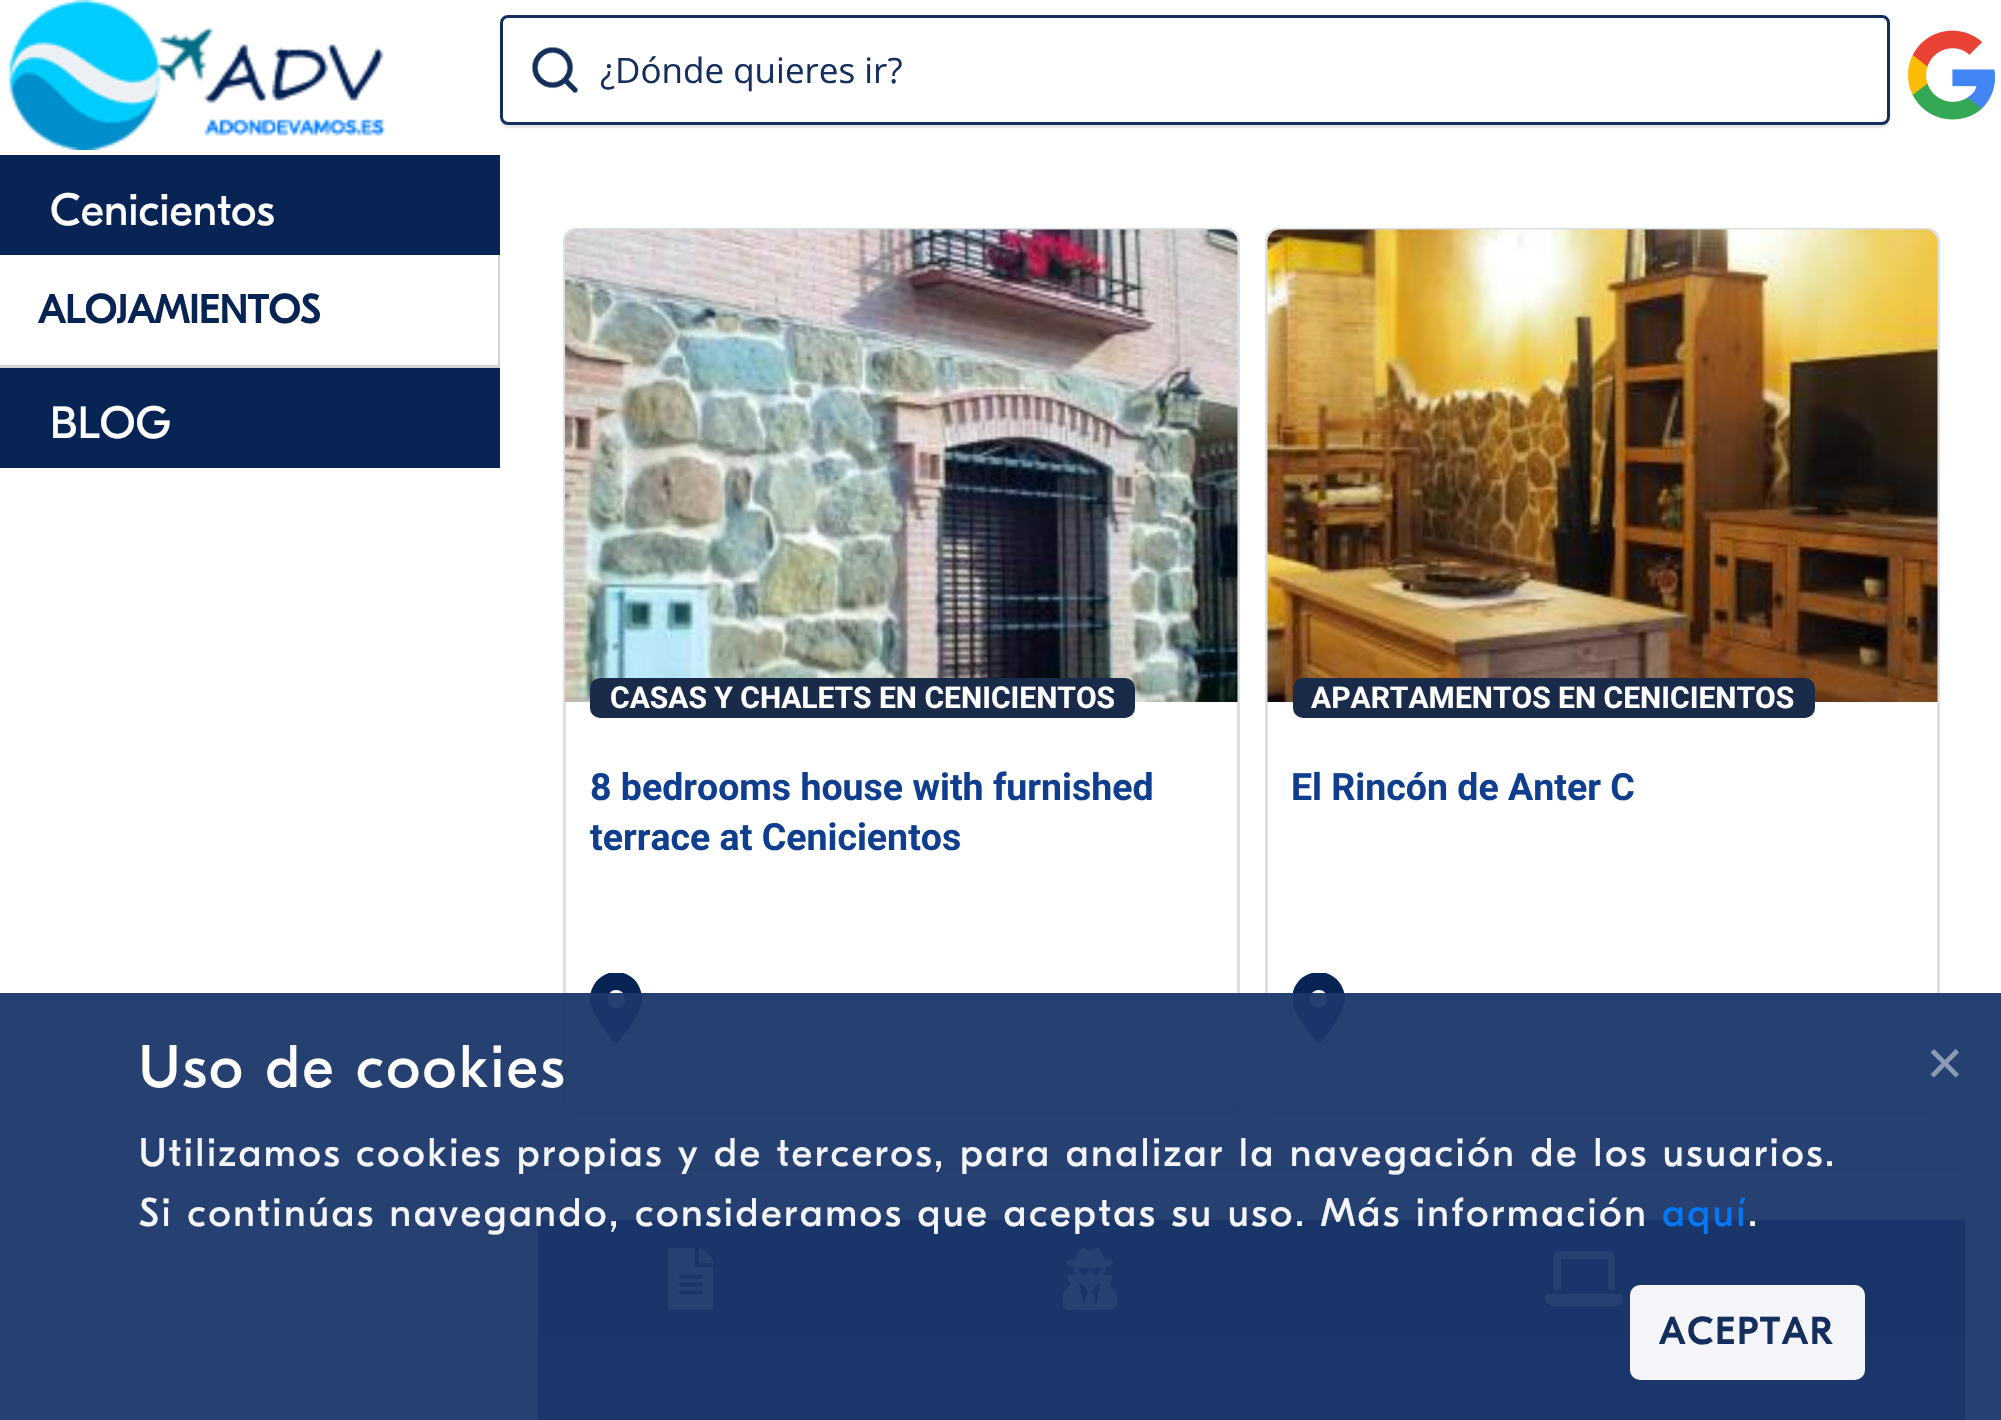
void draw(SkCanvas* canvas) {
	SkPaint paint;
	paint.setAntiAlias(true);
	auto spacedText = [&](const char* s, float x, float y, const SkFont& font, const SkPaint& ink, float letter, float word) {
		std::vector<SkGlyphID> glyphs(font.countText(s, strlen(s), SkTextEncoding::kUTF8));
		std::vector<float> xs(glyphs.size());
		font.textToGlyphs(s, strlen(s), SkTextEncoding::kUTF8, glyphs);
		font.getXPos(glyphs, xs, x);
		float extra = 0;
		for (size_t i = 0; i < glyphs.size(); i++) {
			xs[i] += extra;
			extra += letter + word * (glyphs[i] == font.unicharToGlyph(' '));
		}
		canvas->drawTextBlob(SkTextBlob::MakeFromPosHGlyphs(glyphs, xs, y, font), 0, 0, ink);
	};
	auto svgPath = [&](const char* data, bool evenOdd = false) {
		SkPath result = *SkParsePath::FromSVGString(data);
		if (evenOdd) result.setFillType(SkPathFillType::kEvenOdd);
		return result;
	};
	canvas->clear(0xffffffff);
	canvas->drawImageRect(SkImages::DeferredFromEncodedData(SkData::MakeFromFileName("img1.png")), SkRect::MakeXYWH(5, 0, 381, 150), SkSamplingOptions());
	canvas->save();
	canvas->clipPath(svgPath("M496 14H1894V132H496ZM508 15H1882C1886.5 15 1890 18.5 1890 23V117C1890 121.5 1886.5 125 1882 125H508C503.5 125 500 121.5 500 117V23C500 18.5 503.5 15 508 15Z", true), true);
	paint.setColor(0x1a0d0d0d);
	paint.setMaskFilter(SkMaskFilter::MakeBlur(kNormal_SkBlurStyle, 1));
	canvas->drawRoundRect(SkRect::MakeXYWH(500, 18, 1390, 110), 8, 8, paint);
	paint.setMaskFilter(nullptr);
	canvas->restore();
	paint.setColor(0xccffffff);
	canvas->drawRoundRect(SkRect::MakeXYWH(501.5, 16.5, 1387, 107), 6.5, 6.5, paint);
	paint.setStroke(true);
	paint.setStrokeWidth(3);
	paint.setColor(0xff142f5d);
	canvas->drawRoundRect(SkRect::MakeXYWH(501.5, 16.5, 1387, 107), 6.5, 6.5, paint);
	canvas->drawImageRect(SkImages::DeferredFromEncodedData(SkData::MakeFromFileName("img2.png")), SkRect::MakeXYWH(532, 47, 46, 46), SkSamplingOptions());
	SkFont f1(fontMgr->matchFamilyStyle("Open Sans", SkFontStyle::Normal()), 35);
	f1.setSubpixel(true);
	paint.setStroke(false);
	canvas->drawString("¿Dónde quieres ir?", 600, 83, f1, paint);
	canvas->drawImageRect(SkImages::DeferredFromEncodedData(SkData::MakeFromFileName("img3.png")), SkRect::MakeXYWH(1907, 30, 89, 90), SkSamplingOptions());
	paint.setColor(0xff082454);
	canvas->drawRect(SkRect::MakeXYWH(0, 155, 500, 100), paint);
	SkFont f2(fontMgr->matchFamilyStyle("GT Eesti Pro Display", SkFontStyle::Normal()), 45);
	f2.setSubpixel(true);
	paint.setColor(0xffffffff);
	canvas->drawString("Cenicientos", 50, 225, f2, paint);
	paint.setColor(0xffd4d4d4);
	canvas->drawRect(SkRect::MakeXYWH(498, 255, 2, 113), paint);
	canvas->drawRect(SkRect::MakeXYWH(0, 365, 498, 3), paint);
	SkFont f3(fontMgr->matchFamilyStyle("GT Eesti Pro Display", SkFontStyle::Bold()), 40);
	f3.setSubpixel(true);
	paint.setColor(0xff082454);
	canvas->drawString("ALOJAMIENTOS", 38, 323, f3, paint);
	canvas->drawRect(SkRect::MakeXYWH(0, 368, 500, 100), paint);
	paint.setColor(0xffffffff);
	canvas->drawString("BLOG", 50, 438, f2, paint);
	paint.setStroke(true);
	paint.setColor(0xffdcdfe4);
	canvas->drawRoundRect(SkRect::MakeXYWH(564.5, 229.5, 674, 884), 11.5, 11.5, paint);
	canvas->drawImageRect(SkImages::DeferredFromEncodedData(SkData::MakeFromFileName("img4.png")), SkRect::MakeXYWH(565, 229, 673, 473), SkSamplingOptions());
	paint.setStroke(false);
	paint.setColor(0xff1a2b49);
	canvas->drawRoundRect(SkRect::MakeXYWH(590, 678, 545, 40), 10, 10, paint);
	SkFont f4(fontMgr->matchFamilyStyle("Roboto", SkFontStyle::Bold()), 30);
	f4.setSubpixel(true);
	paint.setColor(0xffffffff);
	canvas->drawString("CASAS Y CHALETS EN CENICIENTOS", 610, 708, f4, paint);
	SkFont f5(fontMgr->matchFamilyStyle("Roboto", SkFontStyle::Bold()), 37.5);
	f5.setSubpixel(true);
	paint.setColor(0xff103e8e);
	canvas->drawString("8 bedrooms house with furnished", 590, 800, f5, paint);
	canvas->drawString("terrace at Cenicientos", 590, 850, f5, paint);
	canvas->save();
	canvas->clipRect(SkRect::MakeXYWH(590, 973, 53, 70));
	paint.setColor(0xff082454);
	canvas->drawPath(svgPath("M613 1041C606 1032 590 1011 590 999C590 984 602 972 616 972C631 972 642 984 642 999C642 1011 627 1032 619 1041C618 1043 615 1043 613 1041ZM616 1008C628 1008 628 990 616 990C605 990 605 1008 616 1008Z"), paint);
	canvas->restore();
	paint.setStroke(true);
	paint.setColor(0xffdcdfe4);
	canvas->drawRoundRect(SkRect::MakeXYWH(1266.5, 229.5, 672, 884), 11.5, 11.5, paint);
	canvas->drawImageRect(SkImages::DeferredFromEncodedData(SkData::MakeFromFileName("img5.png")), SkRect::MakeXYWH(1267, 229, 671, 473), SkSamplingOptions());
	paint.setStroke(false);
	paint.setColor(0xff1a2b49);
	canvas->drawRoundRect(SkRect::MakeXYWH(1293, 678, 522, 40), 10, 10, paint);
	paint.setColor(0xffffffff);
	canvas->drawString("APARTAMENTOS EN CENICIENTOS", 1311, 708, f4, paint);
	paint.setColor(0xff103e8e);
	canvas->drawString("El Rincón de Anter C", 1291, 800, f5, paint);
	canvas->save();
	canvas->clipRect(SkRect::MakeXYWH(1293, 973, 52, 70));
	paint.setColor(0xff082454);
	canvas->drawPath(svgPath("M1316 1041C1308 1032 1292 1011 1292 999C1292 984 1304 972 1319 972C1333 972 1345 984 1345 999C1345 1011 1329 1032 1322 1041C1320 1043 1317 1043 1316 1041ZM1319 1008C1330 1008 1330 990 1319 990C1307 990 1307 1008 1319 1008Z"), paint);
	canvas->restore();
	paint.setColor(0xffe6e6e6);
	canvas->drawRect(SkRect::MakeXYWH(538, 1168, 1427, 3), paint);
	paint.setColor(0xff193669);
	canvas->drawRect(SkRect::MakeXYWH(538, 1338, 1427, 82), paint);
	paint.setColor(0xff082454);
	canvas->drawRect(SkRect::MakeXYWH(538, 1220, 1427, 118), paint);
	canvas->drawImageRect(SkImages::DeferredFromEncodedData(SkData::MakeFromFileName("img6.png")), SkRect::MakeXYWH(668, 1248, 45, 62), SkSamplingOptions());
	canvas->drawImageRect(SkImages::DeferredFromEncodedData(SkData::MakeFromFileName("img7.png")), SkRect::MakeXYWH(1063, 1248, 55, 62), SkSamplingOptions());
	paint.setColor(0xffffffff);
	canvas->drawPath(svgPath("M1561 1259H1608V1290H1615V1257C1615 1254 1613 1251 1609 1251H1559C1555 1251 1553 1254 1553 1257V1290H1561ZM1621 1294H1559C1553 1294 1541 1291 1546 1301C1548 1308 1558 1306 1563 1306H1617C1623 1305 1625 1294 1621 1294Z"), paint);
	paint.setColor(0xf2193669);
	canvas->drawRect(SkRect::MakeXYWH(0, 993, 2001, 427), paint);
	SkFont f6(fontMgr->matchFamilyStyle("GT Eesti Pro Display", SkFontStyle::Normal()), 60);
	f6.setSubpixel(true);
	paint.setColor(0xffffffff);
	spacedText("Uso de cookies", 139, 1087, f6, paint, 2.5, 0);
	SkFont f7(fontMgr->matchFamilyStyle("GT Eesti Pro Display", SkFontStyle::Normal()), 40);
	f7.setSubpixel(true);
	paint.setColor(0xfff4f5f8);
	spacedText("Utilizamos cookies propias y de terceros, para analizar la navegación de los usuarios.", 139, 1166, f7, paint, 2.5, 0);
	spacedText("Si continúas navegando, consideramos que aceptas su uso. Más información", 139, 1226, f7, paint, 2.5, 0);
	paint.setColor(0xff0278f8);
	spacedText("aquí", 1662, 1226, f7, paint, 2.5, 0);
	paint.setColor(0xfff4f5f8);
	spacedText(".", 1748, 1226, f7, paint, 2.5, 0);
	paint.setColor(0xf2ffffff);
	canvas->drawRoundRect(SkRect::MakeXYWH(1630, 1285, 235, 95), 10, 10, paint);
	SkFont f8(fontMgr->matchFamilyStyle("GT Eesti Pro Display", SkFontStyle::Bold()), 37.5);
	f8.setSubpixel(true);
	paint.setColor(0xff142f5d);
	spacedText("ACEPTAR", 1659, 1344, f8, paint, 2.5, 0);
	SkFont f9(fontMgr->matchFamilyStyle("GT Eesti Pro Display", SkFontStyle::Bold()), 60);
	f9.setSubpixel(true);
	paint.setColor(0xff8c9bb4);
	canvas->drawString("×", 1926, 1082, f9, paint);
}
